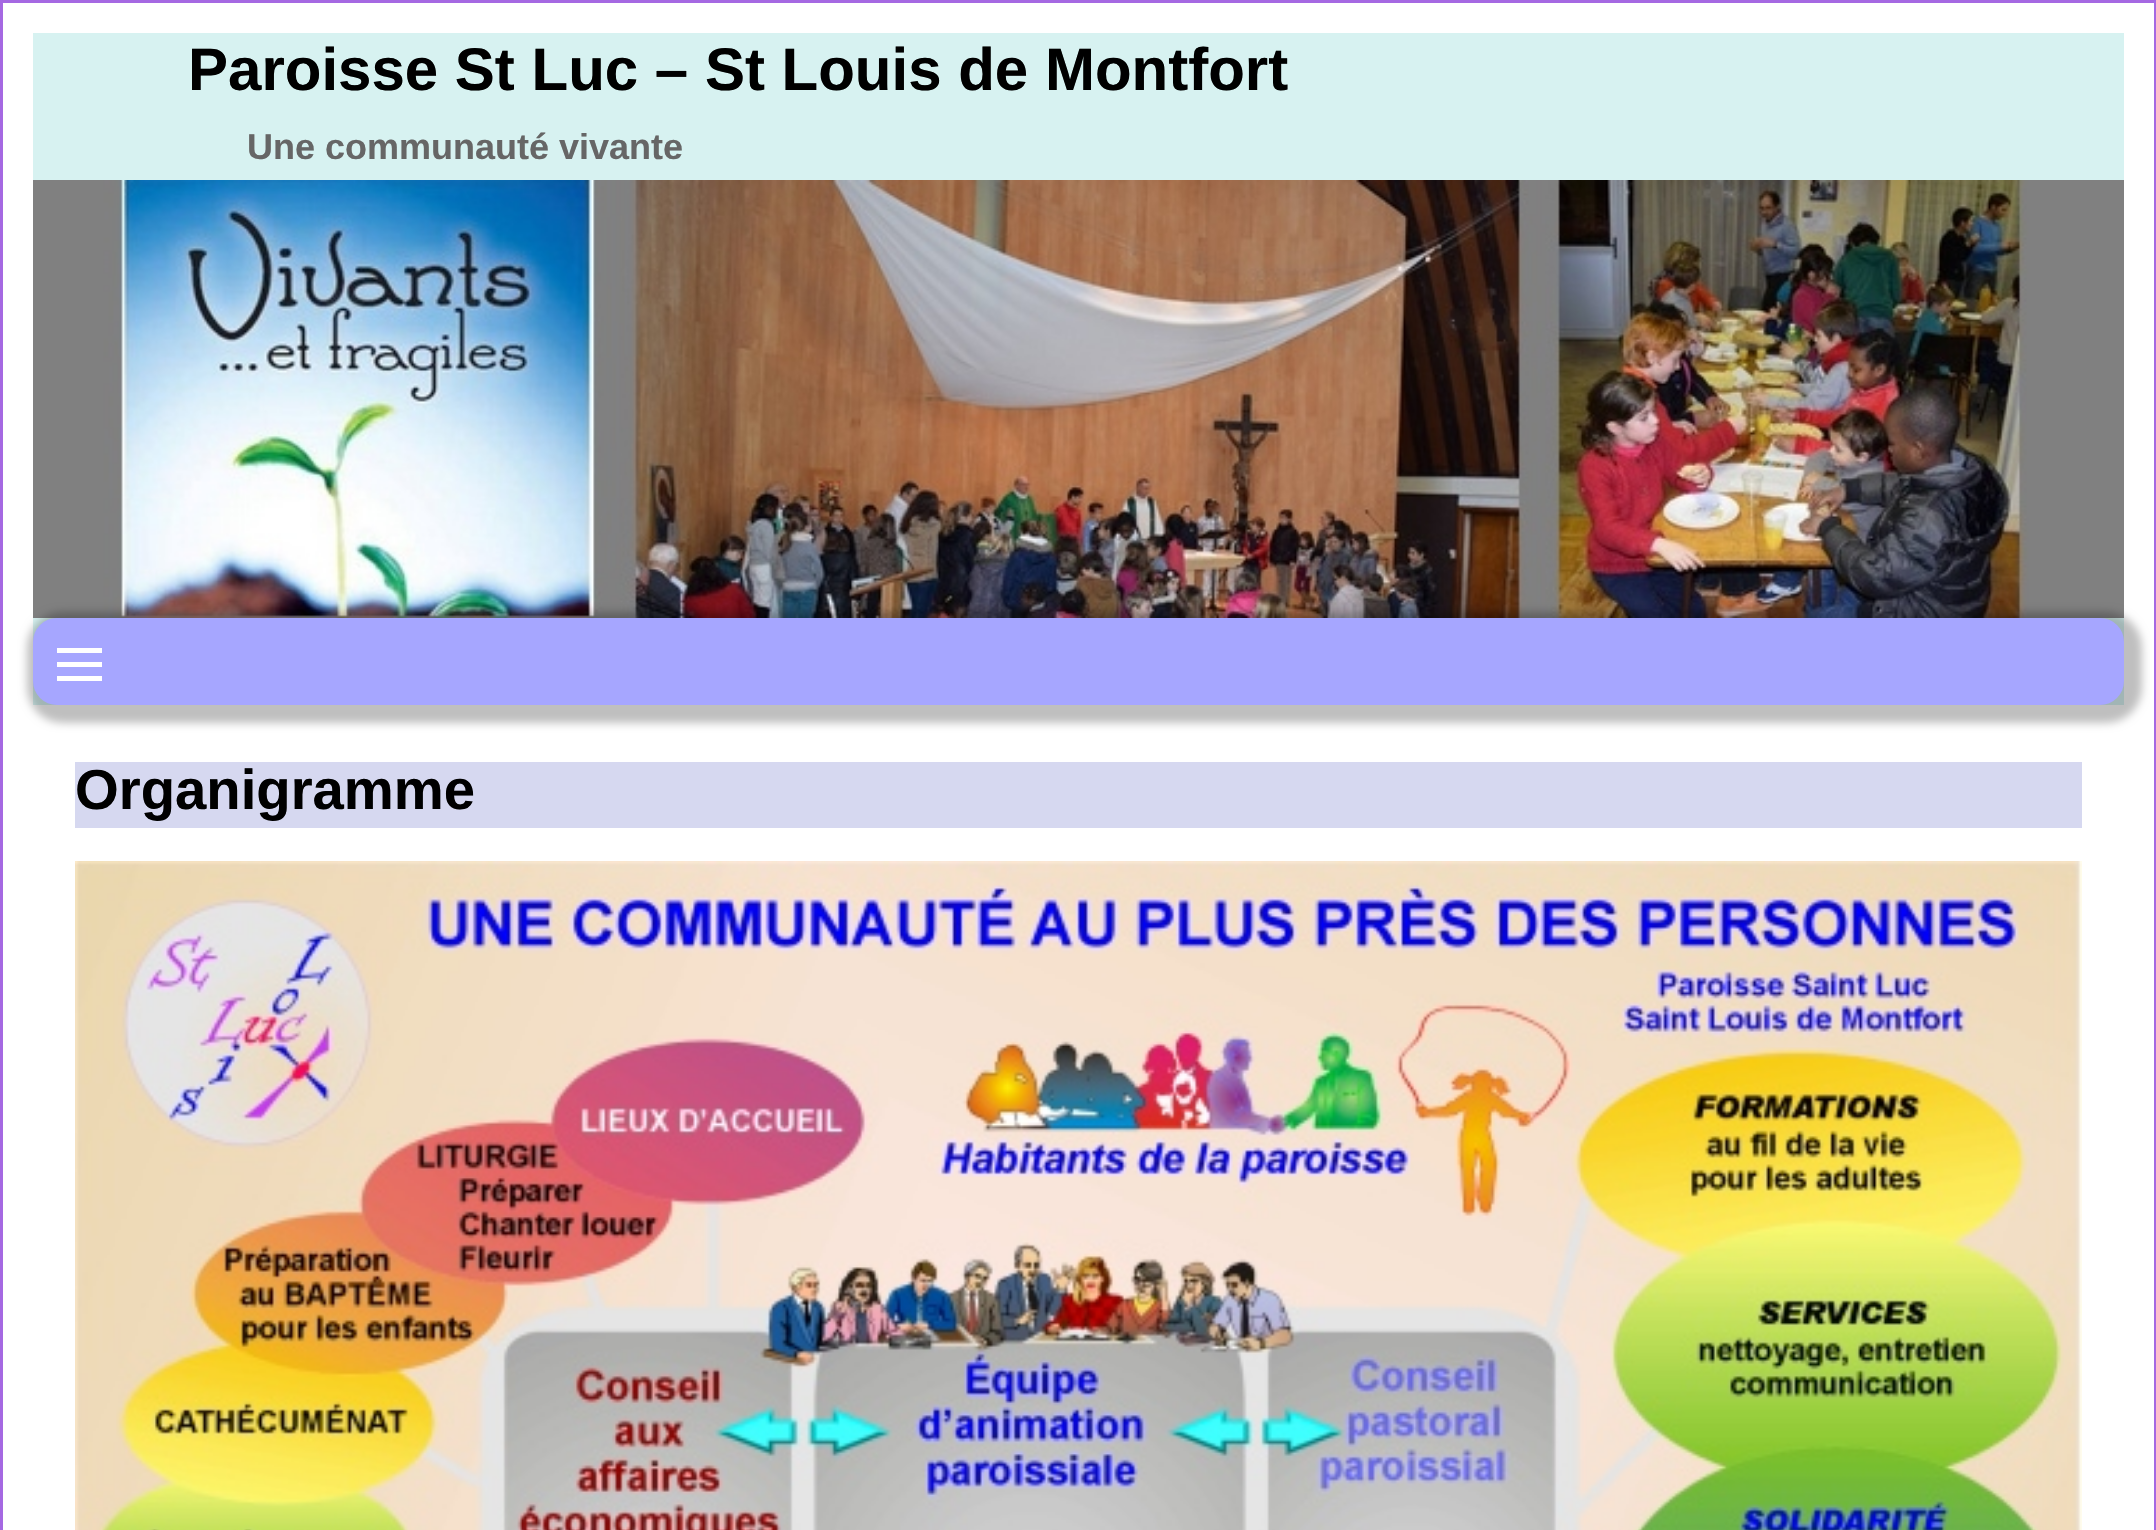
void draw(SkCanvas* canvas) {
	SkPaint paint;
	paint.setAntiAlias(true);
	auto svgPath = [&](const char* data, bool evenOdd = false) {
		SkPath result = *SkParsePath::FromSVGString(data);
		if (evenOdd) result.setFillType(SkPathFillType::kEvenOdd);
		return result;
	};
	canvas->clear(0xffffffff);
	paint.setStroke(true);
	paint.setStrokeWidth(3);
	paint.setColor(0xffa568e2);
	canvas->drawRect(SkRect::MakeXYWH(1.5, 1.5, 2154, 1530), paint);
	paint.setStroke(false);
	paint.setColor(0xffd7f2f1);
	canvas->drawRect(SkRect::MakeXYWH(33, 33, 2091, 672), paint);
	SkFont f1(fontMgr->matchFamilyStyle("Liberation Sans", SkFontStyle::Bold()), 60);
	f1.setSubpixel(true);
	paint.setColor(0xff000000);
	canvas->drawString("Paroisse St Luc – St Louis de Montfort", 188, 90, f1, paint);
	SkFont f2(fontMgr->matchFamilyStyle("Liberation Sans", SkFontStyle::Bold()), 36);
	f2.setSubpixel(true);
	paint.setColor(0xff666666);
	canvas->drawString("Une communauté vivante", 247, 159, f2, paint);
	canvas->drawImageRect(SkImages::DeferredFromEncodedData(SkData::MakeFromFileName("img1.png")), SkRect::MakeXYWH(33, 180, 2091, 438), SkSamplingOptions());
	paint.setColor(0x40000000);
	paint.setMaskFilter(SkMaskFilter::MakeBlur(kNormal_SkBlurStyle, 4.5));
	canvas->drawRoundRect(SkRect::MakeXYWH(27, 612, 2115, 111), 36, 36, paint);
	paint.setMaskFilter(nullptr);
	paint.setColor(0xffa6a6ff);
	canvas->drawRoundRect(SkRect::MakeXYWH(33, 618, 2091, 87), 24, 24, paint);
	paint.setColor(0xffffffff);
	canvas->drawPath(svgPath("M57 681V676H102V681ZM57 648H102V653H57ZM57 667V662H102V667Z"), paint);
	paint.setColor(0xffd6d8f0);
	canvas->drawRect(SkRect::MakeXYWH(75, 762, 2007, 66), paint);
	SkFont f3(fontMgr->matchFamilyStyle("Liberation Sans", SkFontStyle::Bold()), 56.25);
	f3.setSubpixel(true);
	paint.setColor(0xff000000);
	canvas->drawString("Organigramme", 75, 809, f3, paint);
	canvas->drawImageRect(SkImages::DeferredFromEncodedData(SkData::MakeFromFileName("img2.png")), SkRect::MakeXYWH(75, 861, 2007, 669), SkSamplingOptions());
}
